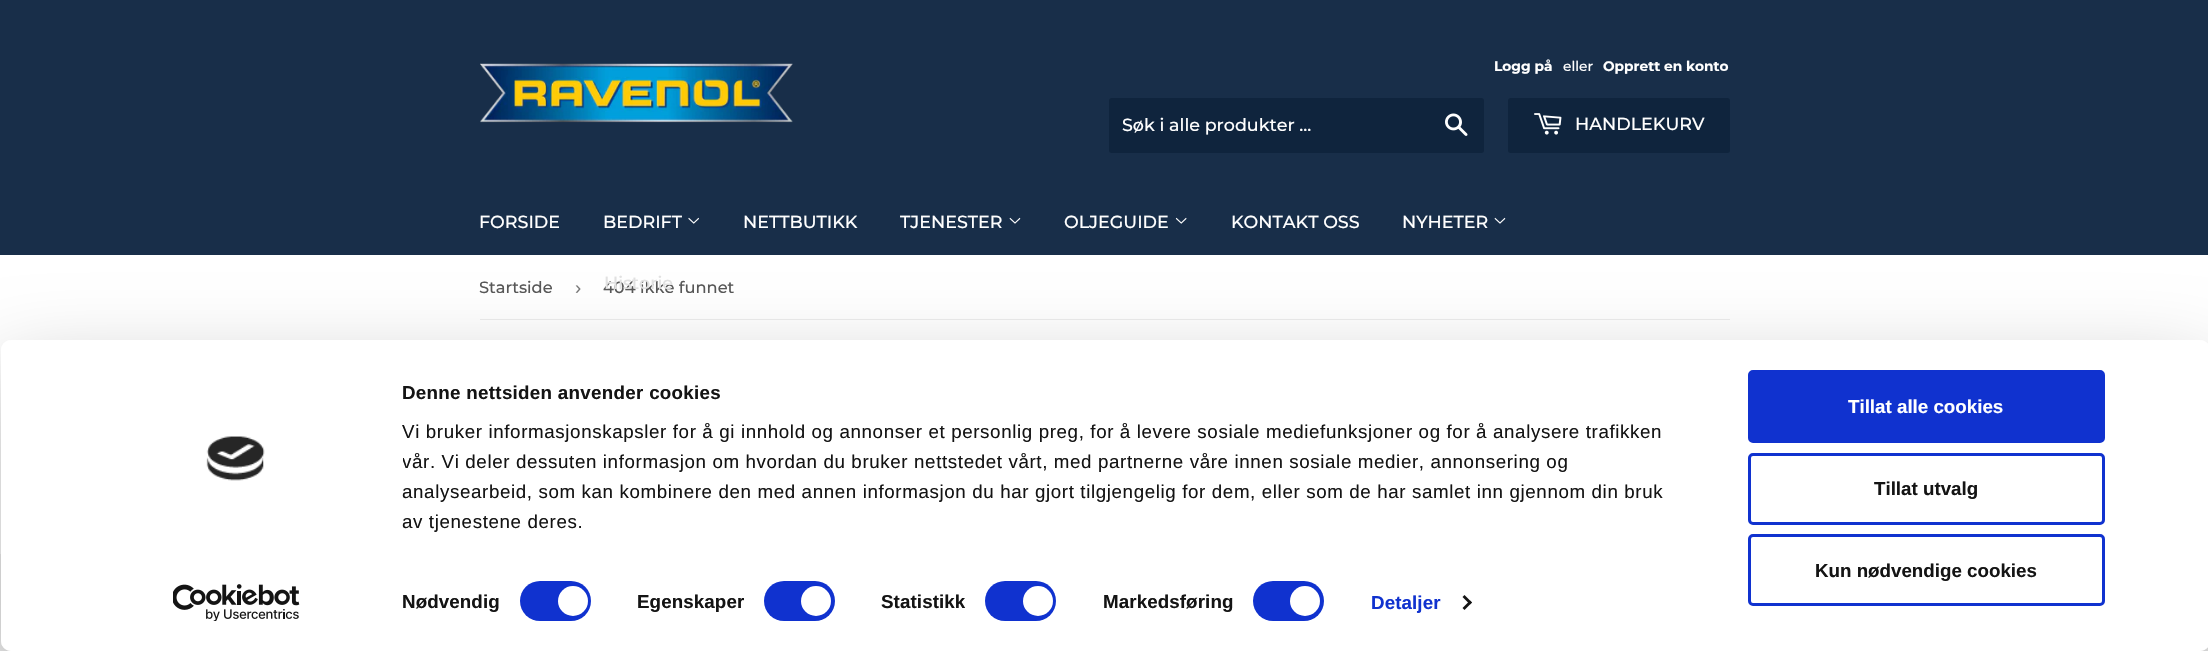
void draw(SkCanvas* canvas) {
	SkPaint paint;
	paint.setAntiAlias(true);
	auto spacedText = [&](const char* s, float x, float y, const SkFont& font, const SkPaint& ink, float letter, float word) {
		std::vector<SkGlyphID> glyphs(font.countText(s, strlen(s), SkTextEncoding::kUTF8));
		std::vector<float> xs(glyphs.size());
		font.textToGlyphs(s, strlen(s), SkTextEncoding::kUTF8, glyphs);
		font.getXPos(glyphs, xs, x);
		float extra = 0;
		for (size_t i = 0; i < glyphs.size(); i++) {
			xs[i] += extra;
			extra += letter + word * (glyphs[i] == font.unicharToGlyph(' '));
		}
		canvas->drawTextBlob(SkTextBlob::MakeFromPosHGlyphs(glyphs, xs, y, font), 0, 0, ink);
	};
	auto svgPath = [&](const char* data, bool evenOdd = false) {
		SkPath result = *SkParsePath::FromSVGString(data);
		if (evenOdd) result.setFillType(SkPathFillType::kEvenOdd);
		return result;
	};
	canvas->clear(0xffffffff);
	paint.setColor(0xff182e49);
	canvas->drawRect(SkRect::MakeXYWH(0, 0, 2208, 255), paint);
	canvas->drawImageRect(SkImages::DeferredFromEncodedData(SkData::MakeFromFileName("img1.png")), SkRect::MakeXYWH(480, 63, 313, 60), SkSamplingOptions());
	SkFont f1(fontMgr->matchFamilyStyle("Montserrat", SkFontStyle::Bold()), 13.75);
	f1.setSubpixel(true);
	paint.setColor(0xffffffff);
	canvas->drawString("Logg på", 1494, 71, f1, paint);
	SkFont f2(fontMgr->matchFamilyStyle("Montserrat", SkFontStyle(500, SkFontStyle::kNormal_Width, SkFontStyle::kUpright_Slant)), 13.75);
	f2.setSubpixel(true);
	canvas->drawString("eller", 1563, 71, f2, paint);
	canvas->drawString("Opprett en konto", 1603, 71, f1, paint);
	paint.setColor(0xff0f243d);
	canvas->drawRoundRect(SkRect::MakeXYWH(1109, 98, 375, 55), 2.5, 2.5, paint);
	SkFont f3(fontMgr->matchFamilyStyle("Montserrat", SkFontStyle(500, SkFontStyle::kNormal_Width, SkFontStyle::kUpright_Slant)), 17.5);
	f3.setSubpixel(true);
	paint.setColor(0xffffffff);
	canvas->drawString("Søk i alle produkter ...", 1122, 131, f3, paint);
	canvas->drawImageRect(SkImages::DeferredFromEncodedData(SkData::MakeFromFileName("img2.png")), SkRect::MakeXYWH(1445, 113, 23, 23), SkSamplingOptions());
	paint.setColor(0xff0f243d);
	canvas->drawRoundRect(SkRect::MakeXYWH(1508, 98, 222, 55), 2.5, 2.5, paint);
	canvas->drawImageRect(SkImages::DeferredFromEncodedData(SkData::MakeFromFileName("img3.png")), SkRect::MakeXYWH(1534, 113, 28, 22), SkSamplingOptions());
	paint.setColor(0xffffffff);
	canvas->drawString("HANDLEKURV", 1575, 130, f3, paint);
	canvas->drawString("FORSIDE", 479, 228, f3, paint);
	canvas->drawString("BEDRIFT", 603, 228, f3, paint);
	canvas->drawImageRect(SkImages::DeferredFromEncodedData(SkData::MakeFromFileName("img4.png")), SkRect::MakeXYWH(688, 217, 11, 7), SkSamplingOptions());
	SkFont f4(fontMgr->matchFamilyStyle("Montserrat", SkFontStyle(500, SkFontStyle::kNormal_Width, SkFontStyle::kUpright_Slant)), 16.25);
	f4.setSubpixel(true);
	paint.setColor(0xff585858);
	canvas->drawString("404 ikke funnet", 603, 293, f4, paint);
	paint.setColor(0xffe2e2e2);
	canvas->drawString("Historie", 604, 289, f3, paint);
	paint.setColor(0xffffffff);
	canvas->drawString("NETTBUTIKK", 743, 228, f3, paint);
	canvas->drawString("TJENESTER", 900, 228, f3, paint);
	canvas->drawImageRect(SkImages::DeferredFromEncodedData(SkData::MakeFromFileName("img5.png")), SkRect::MakeXYWH(1009, 217, 12, 7), SkSamplingOptions());
	canvas->drawString("OLJEGUIDE", 1064, 228, f3, paint);
	canvas->drawImageRect(SkImages::DeferredFromEncodedData(SkData::MakeFromFileName("img6.png")), SkRect::MakeXYWH(1175, 217, 12, 7), SkSamplingOptions());
	canvas->drawString("KONTAKT OSS", 1231, 228, f3, paint);
	canvas->drawString("NYHETER", 1402, 228, f3, paint);
	canvas->drawImageRect(SkImages::DeferredFromEncodedData(SkData::MakeFromFileName("img5.png")), SkRect::MakeXYWH(1494, 217, 12, 7), SkSamplingOptions());
	paint.setColor(0xffececec);
	canvas->drawRect(SkRect::MakeXYWH(480, 319, 1250, 1), paint);
	paint.setColor(0xff585858);
	canvas->drawString("Startside", 479, 293, f4, paint);
	SkFont f5(fontMgr->matchFamilyStyle("Liberation Sans", SkFontStyle::Normal()), 18.75);
	f5.setSubpixel(true);
	paint.setColor(0xff767676);
	canvas->drawString("›", 575, 294, f5, paint);
	paint.setColor(0xfff2f2f2);
	canvas->drawRect(SkRect::MakeXYWH(0, 554, 2208, 97), paint);
	canvas->save();
	canvas->clipPath(svgPath("M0 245H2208V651H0ZM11 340H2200C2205.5 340 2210 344.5 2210 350V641C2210 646.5 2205.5 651 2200 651H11C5.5 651 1 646.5 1 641V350C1 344.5 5.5 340 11 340Z", true), true);
	paint.setColor(0x4d000000);
	paint.setMaskFilter(SkMaskFilter::MakeBlur(kNormal_SkBlurStyle, 44));
	canvas->drawRoundRect(SkRect::MakeXYWH(1, 378, 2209, 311), 10, 10, paint);
	paint.setMaskFilter(nullptr);
	canvas->restore();
	paint.setColor(0xffffffff);
	canvas->drawRoundRect(SkRect::MakeXYWH(1, 340, 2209, 311), 10, 10, paint);
	canvas->drawImageRect(SkImages::DeferredFromEncodedData(SkData::MakeFromFileName("img7.png")), SkRect::MakeXYWH(206, 436, 59, 45), SkSamplingOptions());
	canvas->drawImageRect(SkImages::DeferredFromEncodedData(SkData::MakeFromFileName("img8.png")), SkRect::MakeXYWH(173, 584, 127, 37), SkSamplingOptions());
	SkFont f6(fontMgr->matchFamilyStyle("Liberation Sans", SkFontStyle::Bold()), 18.75);
	f6.setSubpixel(true);
	paint.setColor(0xff141414);
	spacedText("Denne nettsiden anvender cookies", 402, 399, f6, paint, 0.3, 0);
	spacedText("Vi bruker informasjonskapsler for å gi innhold og annonser et personlig preg, for å levere sosiale mediefunksjoner og for å analysere trafikken", 402, 438, f5, paint, 0.62, 0);
	canvas->save();
	canvas->clipRect(SkRect::MakeXYWH(403, 378, 1310, 158));
	spacedText("vår. Vi deler dessuten informasjon om hvordan du bruker nettstedet vårt, med partnerne våre innen sosiale medier, annonsering og", 402, 468, f5, paint, 0.62, 0);
	canvas->restore();
	spacedText("analysearbeid, som kan kombinere den med annen informasjon du har gjort tilgjengelig for dem, eller som de har samlet inn gjennom din bruk", 402, 498, f5, paint, 0.62, 0);
	spacedText("av tjenestene deres.", 402, 528, f5, paint, 0.62, 0);
	spacedText("Nødvendig", 402, 608, f6, paint, 0.1, 0);
	paint.setColor(0xff1032cf);
	canvas->drawRoundRect(SkRect::MakeXYWH(520, 581, 71, 40), 20, 20, paint);
	paint.setColor(0xffffffff);
	canvas->drawCircle(573, 601, 15, paint);
	paint.setColor(0xff141414);
	spacedText("Egenskaper", 637, 608, f6, paint, 0.1, 0);
	paint.setColor(0xff1032cf);
	canvas->drawRoundRect(SkRect::MakeXYWH(764, 581, 71, 40), 20, 20, paint);
	paint.setColor(0xffffffff);
	canvas->drawCircle(816, 601, 15, paint);
	paint.setColor(0xff141414);
	spacedText("Statistikk", 881, 608, f6, paint, 0.1, 0);
	paint.setColor(0xff1032cf);
	canvas->drawRoundRect(SkRect::MakeXYWH(985, 581, 71, 40), 20, 20, paint);
	paint.setColor(0xffffffff);
	canvas->drawCircle(1038, 601, 15, paint);
	paint.setColor(0xff141414);
	spacedText("Markedsføring", 1103, 608, f6, paint, 0.1, 0);
	paint.setColor(0xff1032cf);
	canvas->drawRoundRect(SkRect::MakeXYWH(1253, 581, 71, 40), 20, 20, paint);
	paint.setColor(0xffffffff);
	canvas->drawCircle(1305, 601, 15, paint);
	paint.setColor(0xff1032cf);
	spacedText("Detaljer", 1371, 609, f6, paint, 0.1, 0);
	paint.setColor(0xff141414);
	canvas->drawPath(svgPath("M1464.5 595L1472 602.5L1470 604.5L1462.5 597Z"), paint);
	canvas->drawPath(svgPath("M1470 600.5L1472 602.5L1464.5 610L1462.5 608Z"), paint);
	paint.setColor(0xff1032cf);
	canvas->drawRoundRect(SkRect::MakeXYWH(1749.5, 371.5, 354, 70), 3.5, 3.5, paint);
	paint.setStroke(true);
	paint.setStrokeWidth(3);
	canvas->drawRoundRect(SkRect::MakeXYWH(1749.5, 371.5, 354, 70), 3.5, 3.5, paint);
	paint.setStroke(false);
	paint.setColor(0xffffffff);
	canvas->drawString("Tillat alle cookies", 1848, 413, f6, paint);
	paint.setStroke(true);
	paint.setColor(0xff1032cf);
	canvas->drawRoundRect(SkRect::MakeXYWH(1749.5, 454.5, 354, 69), 3.5, 3.5, paint);
	paint.setStroke(false);
	paint.setColor(0xff141414);
	canvas->drawString("Tillat utvalg", 1874, 495, f6, paint);
	paint.setStroke(true);
	paint.setColor(0xff1032cf);
	canvas->drawRoundRect(SkRect::MakeXYWH(1749.5, 535.5, 354, 69), 3.5, 3.5, paint);
	paint.setStroke(false);
	paint.setColor(0xff141414);
	canvas->drawString("Kun nødvendige cookies", 1815, 577, f6, paint);
}
